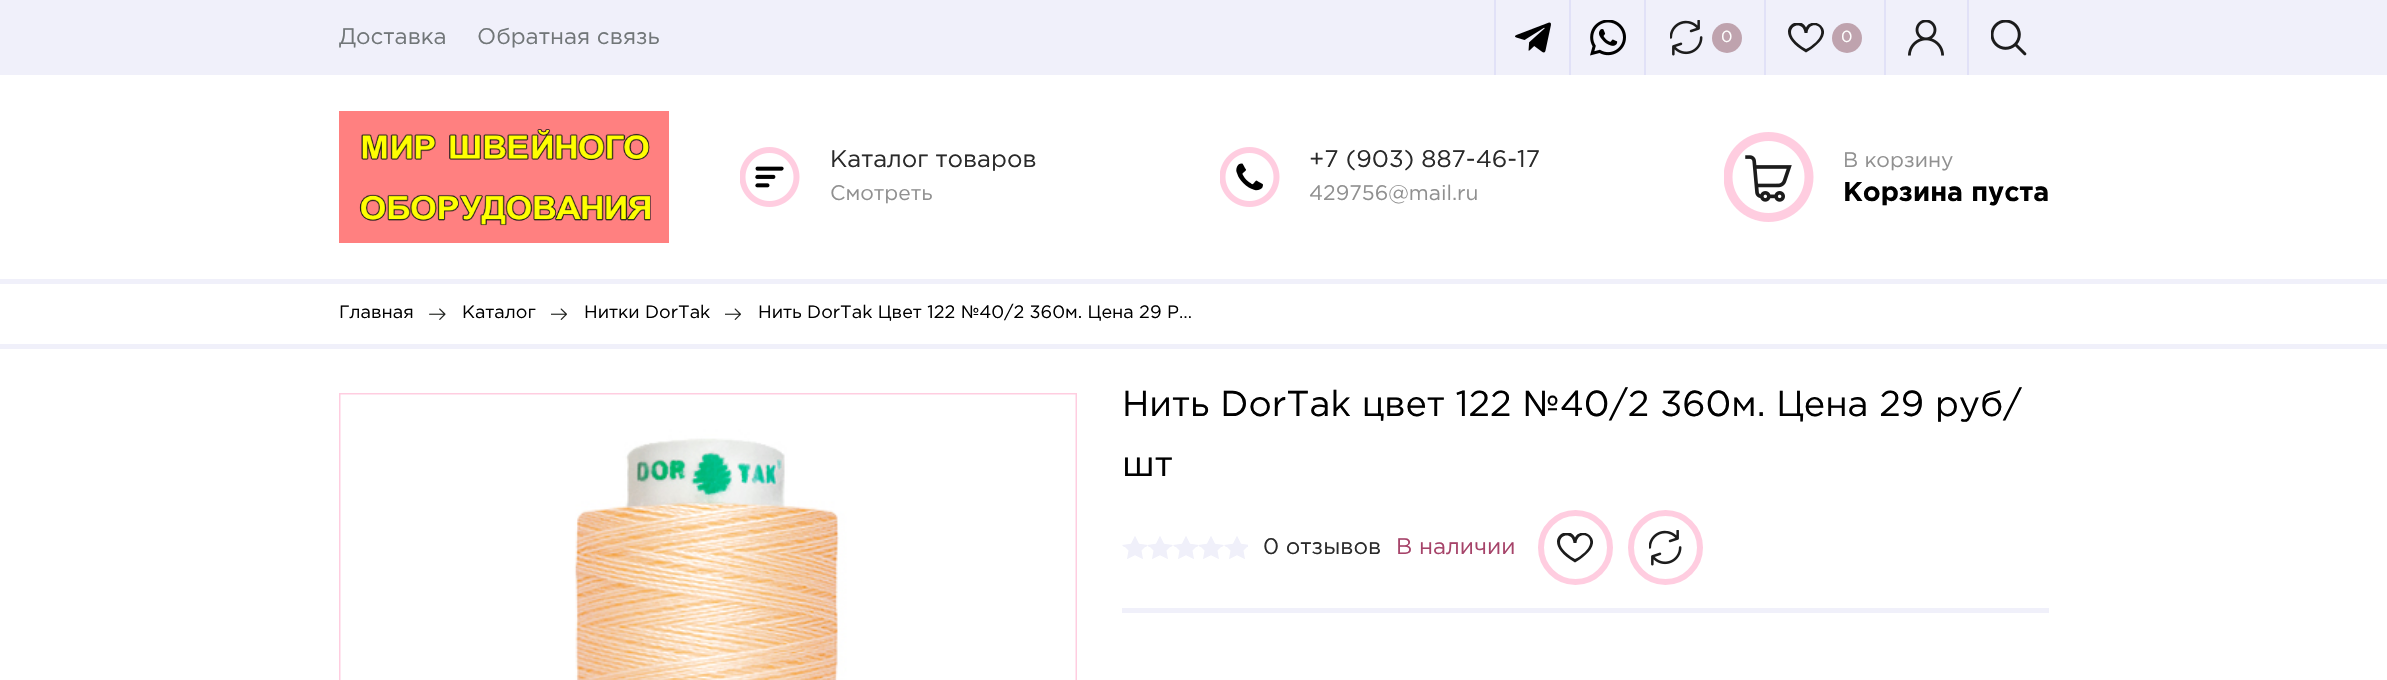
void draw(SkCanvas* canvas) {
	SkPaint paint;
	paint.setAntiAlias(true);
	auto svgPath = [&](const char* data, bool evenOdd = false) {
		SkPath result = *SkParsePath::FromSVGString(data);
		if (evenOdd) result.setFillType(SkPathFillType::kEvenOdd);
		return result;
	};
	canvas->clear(0xffffffff);
	paint.setColor(0xfff0f0fa);
	canvas->drawRect(SkRect::MakeXYWH(0, 0, 2387, 75), paint);
	SkFont f1(fontMgr->matchFamilyStyle("Gotham", SkFontStyle::Normal()), 22.5);
	f1.setSubpixel(true);
	paint.setColor(0xff717678);
	canvas->drawString("Доставка", 339, 44, f1, paint);
	canvas->drawString("Обратная связь", 477, 44, f1, paint);
	canvas->drawImageRect(SkImages::DeferredFromEncodedData(SkData::MakeFromFileName("img1.png")), SkRect::MakeXYWH(1515, 22, 36, 31), SkSamplingOptions());
	paint.setColor(0xffe1e1f7);
	canvas->drawRect(SkRect::MakeXYWH(1494, 0, 2, 75), paint);
	canvas->drawImageRect(SkImages::DeferredFromEncodedData(SkData::MakeFromFileName("img2.png")), SkRect::MakeXYWH(1590, 20, 36, 36), SkSamplingOptions());
	canvas->drawRect(SkRect::MakeXYWH(1569, 0, 2, 75), paint);
	canvas->drawRect(SkRect::MakeXYWH(1644, 0, 2, 75), paint);
	canvas->drawImageRect(SkImages::DeferredFromEncodedData(SkData::MakeFromFileName("img3.png")), SkRect::MakeXYWH(1670, 20, 33, 36), SkSamplingOptions());
	paint.setColor(0xffbfa3ae);
	canvas->drawCircle(1727, 38, 15, paint);
	SkFont f2(fontMgr->matchFamilyStyle("Gotham", SkFontStyle::Normal()), 16);
	f2.setSubpixel(true);
	paint.setColor(0xffffffff);
	canvas->drawString("0", 1721, 42, f2, paint);
	paint.setColor(0xffe1e1f7);
	canvas->drawRect(SkRect::MakeXYWH(1764, 0, 2, 75), paint);
	canvas->save();
	canvas->clipRect(SkRect::MakeXYWH(1788, 23, 36, 30));
	paint.setColor(0xff1c1c1c);
	canvas->drawPath(svgPath("M1821 25.5C1816.5 21 1808.5 22 1806 27.5C1799.5 13 1769 31 1806 52.5C1814 48 1831 35.5 1821 25.5ZM1815.5 42.5C1812.5 45 1809.5 47.5 1806 49C1774 30.5 1803 16 1804.5 33H1807.5C1809 18 1831.5 27 1815.5 42.5Z"), paint);
	canvas->restore();
	paint.setColor(0xffbfa3ae);
	canvas->drawCircle(1847, 38, 15, paint);
	paint.setColor(0xffffffff);
	canvas->drawString("0", 1841, 42, f2, paint);
	paint.setColor(0xffe1e1f7);
	canvas->drawRect(SkRect::MakeXYWH(1884, 0, 2, 75), paint);
	canvas->drawImageRect(SkImages::DeferredFromEncodedData(SkData::MakeFromFileName("img4.png")), SkRect::MakeXYWH(1908, 20, 36, 36), SkSamplingOptions());
	canvas->drawRect(SkRect::MakeXYWH(1967, 0, 2, 75), paint);
	canvas->drawImageRect(SkImages::DeferredFromEncodedData(SkData::MakeFromFileName("img5.png")), SkRect::MakeXYWH(1991, 20, 36, 36), SkSamplingOptions());
	canvas->drawImageRect(SkImages::DeferredFromEncodedData(SkData::MakeFromFileName("img6.png")), SkRect::MakeXYWH(339, 111, 330, 132), SkSamplingOptions());
	canvas->drawImageRect(SkImages::DeferredFromEncodedData(SkData::MakeFromFileName("img7.png")), SkRect::MakeXYWH(740, 147, 60, 60), SkSamplingOptions());
	SkFont f3(fontMgr->matchFamilyStyle("Gotham", SkFontStyle::Normal()), 24);
	f3.setSubpixel(true);
	paint.setColor(0xff2a2a2a);
	canvas->drawString("Каталог товаров", 830, 167, f3, paint);
	SkFont f4(fontMgr->matchFamilyStyle("Gotham", SkFontStyle::Normal()), 21);
	f4.setSubpixel(true);
	paint.setColor(0xff909090);
	canvas->drawString("Смотреть", 830, 200, f4, paint);
	canvas->drawImageRect(SkImages::DeferredFromEncodedData(SkData::MakeFromFileName("img8.png")), SkRect::MakeXYWH(1220, 147, 60, 60), SkSamplingOptions());
	paint.setColor(0xff2a2a2a);
	canvas->drawString("+7 (903) 887-46-17", 1309, 167, f3, paint);
	paint.setColor(0xff909090);
	canvas->drawString("429756@mail.ru", 1309, 200, f4, paint);
	canvas->drawImageRect(SkImages::DeferredFromEncodedData(SkData::MakeFromFileName("img9.png")), SkRect::MakeXYWH(1724, 132, 90, 90), SkSamplingOptions());
	canvas->drawString("В корзину", 1843, 167, f4, paint);
	SkFont f5(fontMgr->matchFamilyStyle("Gotham", SkFontStyle::Bold()), 27);
	f5.setSubpixel(true);
	paint.setColor(0xff000000);
	canvas->drawString("Корзина пуста", 1843, 201, f5, paint);
	paint.setColor(0xfff0f0fa);
	canvas->drawRect(SkRect::MakeXYWH(0, 279, 2387, 5), paint);
	canvas->drawRect(SkRect::MakeXYWH(0, 344, 2387, 5), paint);
	SkFont f6(fontMgr->matchFamilyStyle("Gotham", SkFontStyle::Normal()), 18);
	f6.setSubpixel(true);
	paint.setColor(0xff000000);
	canvas->drawString("Главная", 339, 318, f6, paint);
	canvas->drawImageRect(SkImages::DeferredFromEncodedData(SkData::MakeFromFileName("img10.png")), SkRect::MakeXYWH(429, 308, 17, 12), SkSamplingOptions());
	canvas->drawString("Каталог", 462, 318, f6, paint);
	canvas->drawImageRect(SkImages::DeferredFromEncodedData(SkData::MakeFromFileName("img11.png")), SkRect::MakeXYWH(551, 308, 16, 12), SkSamplingOptions());
	canvas->drawString("Нитки DorTak", 584, 318, f6, paint);
	canvas->drawImageRect(SkImages::DeferredFromEncodedData(SkData::MakeFromFileName("img11.png")), SkRect::MakeXYWH(725, 308, 16, 12), SkSamplingOptions());
	canvas->drawString("Нить DorTak Цвет 122 №40/2 360м. Цена 29 Р…", 758, 318, f6, paint);
	paint.setStroke(true);
	paint.setStrokeWidth(2);
	paint.setColor(0xffffcde0);
	canvas->drawRect(SkRect::MakeXYWH(340, 394, 736, 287), paint);
	canvas->drawImageRect(SkImages::DeferredFromEncodedData(SkData::MakeFromFileName("img12.png")), SkRect::MakeXYWH(340, 394, 736, 286), SkSamplingOptions());
	SkFont f7(fontMgr->matchFamilyStyle("Gotham", SkFontStyle::Normal()), 36);
	f7.setSubpixel(true);
	paint.setStroke(false);
	paint.setColor(0xff000000);
	canvas->drawString("Нить DorTak цвет 122 №40/2 360м. Цена 29 руб/", 1122, 416, f7, paint);
	canvas->drawString("шт", 1122, 476, f7, paint);
	paint.setColor(0xfff0f0fa);
	canvas->drawRect(SkRect::MakeXYWH(1122, 608, 927, 5), paint);
	canvas->drawImageRect(SkImages::DeferredFromEncodedData(SkData::MakeFromFileName("img13.png")), SkRect::MakeXYWH(1122, 536, 126, 23), SkSamplingOptions());
	paint.setColor(0xff2a2a2a);
	canvas->drawString("0 отзывов", 1263, 554, f1, paint);
	paint.setColor(0xffa64369);
	canvas->drawString("В наличии", 1396, 554, f1, paint);
	paint.setStroke(true);
	paint.setStrokeWidth(6);
	paint.setColor(0xffffcde0);
	canvas->drawCircle(1575.5, 547.5, 34.5, paint);
	canvas->save();
	canvas->clipRect(SkRect::MakeXYWH(1557, 533, 36, 30));
	paint.setStroke(false);
	paint.setColor(0xff1c1c1c);
	canvas->drawPath(svgPath("M1590 535.5C1585.5 531 1577.5 532 1575 537.5C1568.5 523 1538 541 1575 562.5C1583 558 1600 545.5 1590 535.5ZM1584.5 552.5C1581.5 555 1578.5 557.5 1575 559C1543 540.5 1572 526 1573.5 543H1576.5C1578 528 1600.5 537 1584.5 552.5Z"), paint);
	canvas->restore();
	paint.setStroke(true);
	paint.setColor(0xffffcde0);
	canvas->drawCircle(1665.5, 547.5, 34.5, paint);
	canvas->drawImageRect(SkImages::DeferredFromEncodedData(SkData::MakeFromFileName("img14.png")), SkRect::MakeXYWH(1649, 530, 33, 36), SkSamplingOptions());
}
